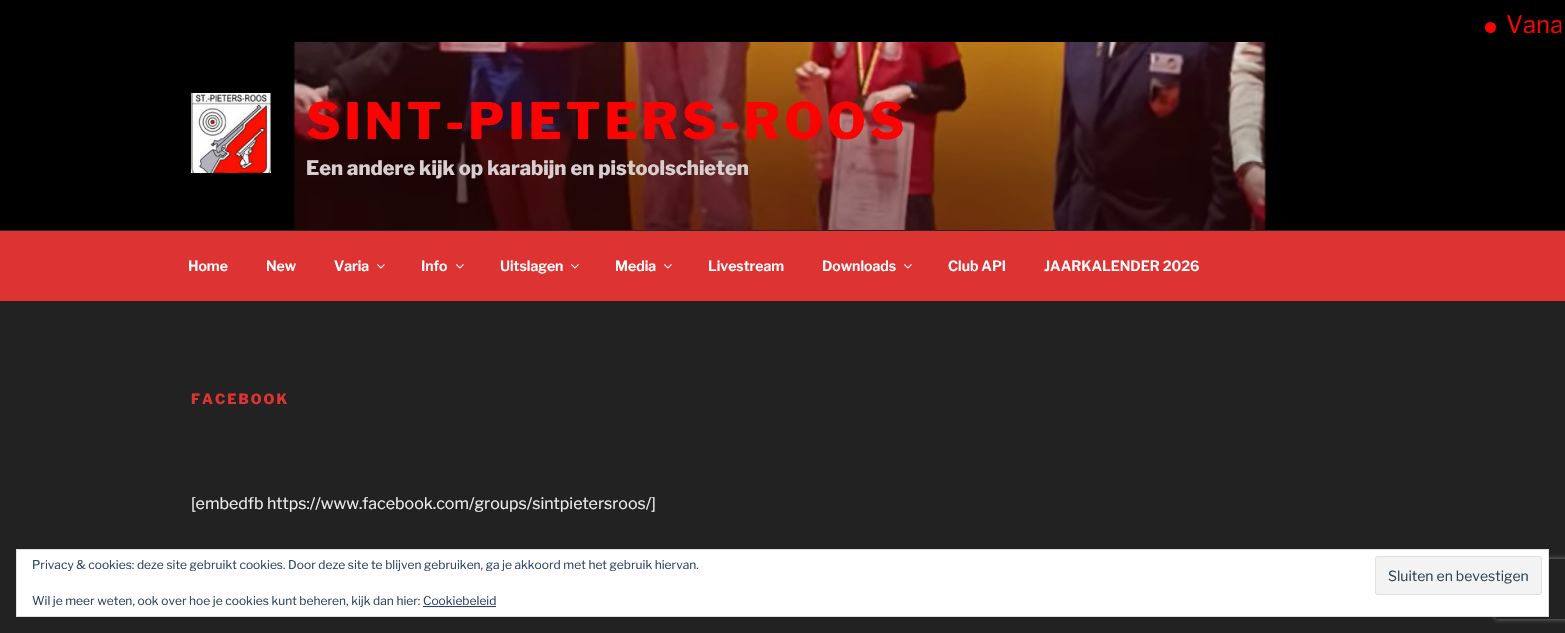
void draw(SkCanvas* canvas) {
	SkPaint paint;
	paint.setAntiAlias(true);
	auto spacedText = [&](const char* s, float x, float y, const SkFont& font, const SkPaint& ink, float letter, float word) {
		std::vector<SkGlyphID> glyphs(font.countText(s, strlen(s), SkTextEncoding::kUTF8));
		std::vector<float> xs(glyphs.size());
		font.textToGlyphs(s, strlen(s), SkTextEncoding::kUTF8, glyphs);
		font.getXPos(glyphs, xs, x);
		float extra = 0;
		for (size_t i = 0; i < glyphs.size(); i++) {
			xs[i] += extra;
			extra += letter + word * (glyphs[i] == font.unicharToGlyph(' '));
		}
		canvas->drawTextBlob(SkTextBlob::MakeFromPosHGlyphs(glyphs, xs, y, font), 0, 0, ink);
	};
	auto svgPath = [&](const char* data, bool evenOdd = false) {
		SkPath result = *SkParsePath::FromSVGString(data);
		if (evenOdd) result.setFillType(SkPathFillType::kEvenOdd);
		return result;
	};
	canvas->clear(0xff222222);
	paint.setColor(0xff000000);
	canvas->drawRect(SkRect::MakeXYWH(0, 0, 1565, 42), paint);
	paint.setColor(0xfffc0303);
	canvas->drawCircle(1490.5, 27.5, 5.5, paint);
	canvas->save();
	canvas->clipRect(SkRect::MakeXYWH(4, 7, 1557, 34));
	SkFont f1(fontMgr->matchFamilyStyle("Libre Franklin", SkFontStyle::Normal()), 24);
	f1.setSubpixel(true);
	canvas->drawString("Vana", 1506, 33, f1, paint);
	canvas->restore();
	paint.setColor(0xff262626);
	canvas->drawRect(SkRect::MakeXYWH(0, 230, 1565, 1), paint);
	canvas->drawImageRect(SkImages::DeferredFromEncodedData(SkData::MakeFromFileName("img1.png")), SkRect::MakeXYWH(0, 42, 1565, 188), SkSamplingOptions());
	canvas->drawImageRect(SkImages::DeferredFromEncodedData(SkData::MakeFromFileName("img2.png")), SkRect::MakeXYWH(191, 93, 80, 80), SkSamplingOptions());
	SkFont f2(fontMgr->matchFamilyStyle("Libre Franklin", SkFontStyle(800, SkFontStyle::kNormal_Width, SkFontStyle::kUpright_Slant)), 50);
	f2.setSubpixel(true);
	paint.setColor(0xfffc0303);
	spacedText("SINT-PIETERS-ROOS", 306, 139, f2, paint, 4, 0);
	SkFont f3(fontMgr->matchFamilyStyle("Libre Franklin", SkFontStyle(800, SkFontStyle::kNormal_Width, SkFontStyle::kUpright_Slant)), 20);
	f3.setSubpixel(true);
	paint.setColor(0xffd7cfcf);
	canvas->drawString("Een andere kijk op karabijn en pistoolschieten", 306, 175, f3, paint);
	paint.setColor(0xffdd3333);
	canvas->drawRect(SkRect::MakeXYWH(0, 231, 1565, 70), paint);
	SkFont f4(fontMgr->matchFamilyStyle("Libre Franklin", SkFontStyle(600, SkFontStyle::kNormal_Width, SkFontStyle::kUpright_Slant)), 14);
	f4.setSubpixel(true);
	paint.setColor(0xffffffff);
	canvas->drawString("Home", 188, 271, f4, paint);
	canvas->drawString("New", 266, 271, f4, paint);
	canvas->drawString("Varia", 334, 271, f4, paint);
	canvas->drawImageRect(SkImages::DeferredFromEncodedData(SkData::MakeFromFileName("img3.png")), SkRect::MakeXYWH(377, 264, 8, 5), SkSamplingOptions());
	canvas->drawString("Info", 421, 271, f4, paint);
	canvas->drawImageRect(SkImages::DeferredFromEncodedData(SkData::MakeFromFileName("img3.png")), SkRect::MakeXYWH(456, 264, 8, 5), SkSamplingOptions());
	canvas->drawString("Uitslagen", 500, 271, f4, paint);
	canvas->drawImageRect(SkImages::DeferredFromEncodedData(SkData::MakeFromFileName("img3.png")), SkRect::MakeXYWH(571, 264, 8, 5), SkSamplingOptions());
	canvas->drawString("Media", 615, 271, f4, paint);
	canvas->drawImageRect(SkImages::DeferredFromEncodedData(SkData::MakeFromFileName("img3.png")), SkRect::MakeXYWH(664, 264, 8, 5), SkSamplingOptions());
	canvas->drawString("Livestream", 708, 271, f4, paint);
	canvas->drawString("Downloads", 822, 271, f4, paint);
	canvas->drawImageRect(SkImages::DeferredFromEncodedData(SkData::MakeFromFileName("img3.png")), SkRect::MakeXYWH(904, 264, 8, 5), SkSamplingOptions());
	canvas->drawString("Club API", 948, 271, f4, paint);
	canvas->drawString("JAARKALENDER 2026", 1044, 271, f4, paint);
	SkFont f5(fontMgr->matchFamilyStyle("Libre Franklin", SkFontStyle(800, SkFontStyle::kNormal_Width, SkFontStyle::kUpright_Slant)), 14);
	f5.setSubpixel(true);
	paint.setColor(0xffdd3333);
	spacedText("FACEBOOK", 191, 404, f5, paint, 2, 0);
	SkFont f6(fontMgr->matchFamilyStyle("Libre Franklin", SkFontStyle::Normal()), 16);
	f6.setSubpixel(true);
	paint.setColor(0xffeeeeee);
	canvas->drawString("[embedfb https://www.facebook.com/groups/sintpietersroos/]", 191, 509, f6, paint);
	canvas->save();
	canvas->clipPath(svgPath("M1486 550H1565V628H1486ZM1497 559H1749C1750 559 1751 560 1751 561V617C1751 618 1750 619 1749 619H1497C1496 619 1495 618 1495 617V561C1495 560 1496 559 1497 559Z", true), true);
	paint.setColor(0xff808080);
	paint.setMaskFilter(SkMaskFilter::MakeBlur(kNormal_SkBlurStyle, 2.5));
	canvas->drawRoundRect(SkRect::MakeXYWH(1495, 559, 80, 60), 2, 2, paint);
	paint.setMaskFilter(nullptr);
	canvas->restore();
	paint.setColor(0xffffffff);
	canvas->drawRect(SkRect::MakeXYWH(16.5, 549.5, 1532, 67), paint);
	paint.setStroke(true);
	paint.setStrokeWidth(1);
	paint.setColor(0xffdedede);
	canvas->drawRect(SkRect::MakeXYWH(16.5, 549.5, 1532, 67), paint);
	SkFont f7(fontMgr->matchFamilyStyle("Libre Franklin", SkFontStyle::Normal()), 12);
	f7.setSubpixel(true);
	paint.setStroke(false);
	paint.setColor(0xff2e4467);
	canvas->drawString("Privacy & cookies: deze site gebruikt cookies. Door deze site te blijven gebruiken, ga je akkoord met het gebruik hiervan.", 32, 569, f7, paint);
	paint.setColor(0xfff3f3f3);
	canvas->drawRoundRect(SkRect::MakeXYWH(1375.5, 556.5, 166, 38), 2.5, 2.5, paint);
	paint.setStroke(true);
	paint.setColor(0xffdedede);
	canvas->drawRoundRect(SkRect::MakeXYWH(1375.5, 556.5, 166, 38), 2.5, 2.5, paint);
	SkFont f8(fontMgr->matchFamilyStyle("Libre Franklin", SkFontStyle::Normal()), 14);
	f8.setSubpixel(true);
	paint.setStroke(false);
	paint.setColor(0xff2e4453);
	canvas->drawString("Sluiten en bevestigen", 1388, 581, f8, paint);
	paint.setColor(0xff2e4467);
	canvas->drawString("Wil je meer weten, ook over hoe je cookies kunt beheren, kijk dan hier: Cookiebeleid", 32, 605, f7, paint);
	canvas->drawRect(SkRect::MakeXYWH(423, 606, 73, 1), paint);
	paint.setColor(0xfff0f0f0);
	canvas->drawRect(SkRect::MakeXYWH(423, 607, 73, 1), paint);
}
